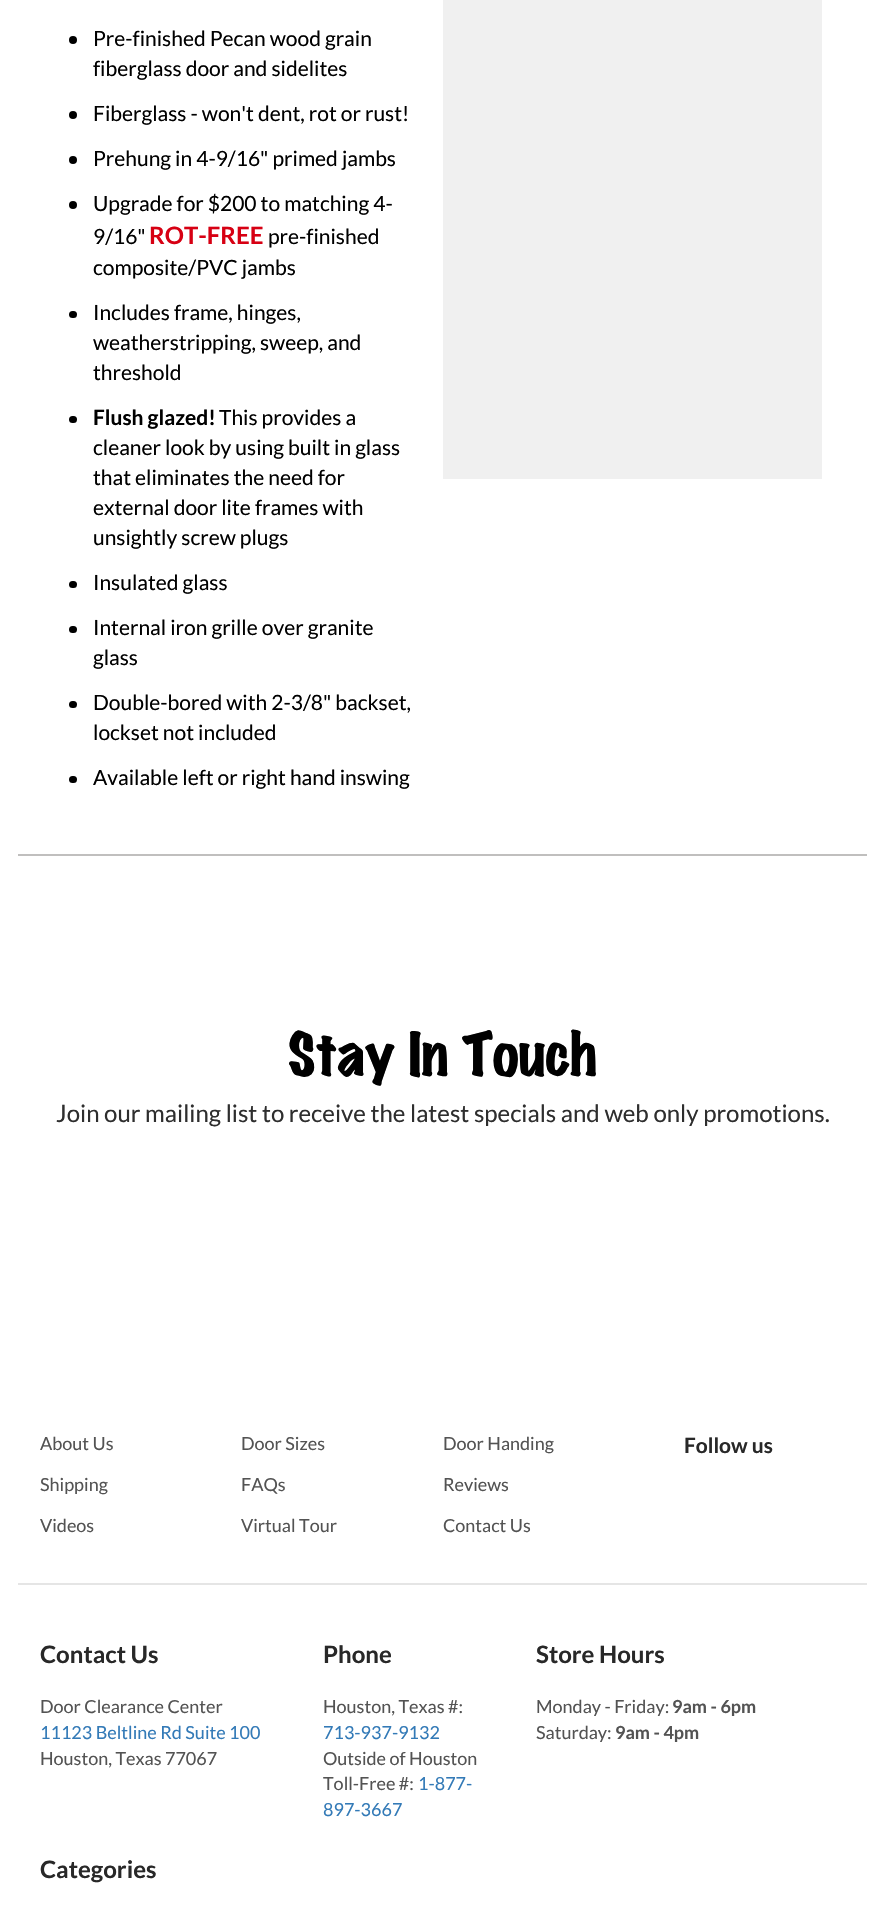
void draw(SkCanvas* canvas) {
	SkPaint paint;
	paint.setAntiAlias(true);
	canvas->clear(0xffffffff);
	paint.setColor(0xffc0bfbe);
	canvas->drawRect(SkRect::MakeXYWH(18, 854, 849, 2), paint);
	paint.setColor(0xff000000);
	canvas->drawCircle(73, 40, 4, paint);
	SkFont f1(fontMgr->matchFamilyStyle("Lato", SkFontStyle::Normal()), 21);
	f1.setSubpixel(true);
	canvas->drawString("Pre-finished Pecan wood grain", 93, 46, f1, paint);
	canvas->drawString("fiberglass door and sidelites", 93, 76, f1, paint);
	canvas->drawCircle(73, 115, 4, paint);
	canvas->drawString("Fiberglass - won't dent, rot or rust!", 93, 121, f1, paint);
	canvas->drawCircle(73, 160, 4, paint);
	canvas->drawString("Prehung in 4-9/16\" primed jambs", 93, 166, f1, paint);
	canvas->drawCircle(73, 205, 4, paint);
	canvas->drawString("Upgrade for $200 to matching 4-", 93, 211, f1, paint);
	canvas->drawString("9/16\"", 93, 244, f1, paint);
	SkFont f2(fontMgr->matchFamilyStyle("Lato", SkFontStyle::Bold()), 24);
	f2.setSubpixel(true);
	paint.setColor(0xffd70013);
	canvas->drawString("ROT-FREE", 149, 244, f2, paint);
	paint.setColor(0xff000000);
	canvas->drawString("pre-finished", 268, 244, f1, paint);
	canvas->drawString("composite/PVC jambs", 93, 275, f1, paint);
	canvas->drawRoundRect(SkRect::MakeXYWH(69, 311, 8, 7), 3.5, 3.5, paint);
	canvas->drawString("Includes frame, hinges,", 93, 320, f1, paint);
	canvas->drawString("weatherstripping, sweep, and", 93, 350, f1, paint);
	canvas->drawString("threshold", 93, 380, f1, paint);
	canvas->drawRoundRect(SkRect::MakeXYWH(69, 416, 8, 7), 3.5, 3.5, paint);
	SkFont f3(fontMgr->matchFamilyStyle("Lato", SkFontStyle::Bold()), 21);
	f3.setSubpixel(true);
	canvas->drawString("Flush glazed!", 93, 425, f3, paint);
	canvas->drawString("This provides a", 219, 425, f1, paint);
	canvas->drawString("cleaner look by using built in glass", 93, 455, f1, paint);
	canvas->drawString("that eliminates the need for", 93, 485, f1, paint);
	canvas->drawString("external door lite frames with", 93, 515, f1, paint);
	canvas->drawString("unsightly screw plugs", 93, 545, f1, paint);
	canvas->drawRoundRect(SkRect::MakeXYWH(69, 581, 8, 7), 3.5, 3.5, paint);
	canvas->drawString("Insulated glass", 93, 590, f1, paint);
	canvas->drawRoundRect(SkRect::MakeXYWH(69, 626, 8, 7), 3.5, 3.5, paint);
	canvas->drawString("Internal iron grille over granite", 93, 635, f1, paint);
	canvas->drawString("glass", 93, 665, f1, paint);
	canvas->drawRoundRect(SkRect::MakeXYWH(69, 701, 8, 7), 3.5, 3.5, paint);
	canvas->drawString("Double-bored with 2-3/8\" backset,", 93, 710, f1, paint);
	canvas->drawString("lockset not included", 93, 740, f1, paint);
	canvas->drawRoundRect(SkRect::MakeXYWH(69, 776, 8, 7), 3.5, 3.5, paint);
	canvas->drawString("Available left or right hand inswing", 93, 785, f1, paint);
	paint.setColor(0xfff0f0f0);
	canvas->drawRect(SkRect::MakeXYWH(443, 0, 379, 479), paint);
	SkFont f4(fontMgr->matchFamilyStyle("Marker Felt", SkFontStyle::Bold()), 54);
	f4.setSubpixel(true);
	paint.setColor(0xff000000);
	canvas->drawString("Stay In Touch", 288, 1075, f4, paint);
	SkFont f5(fontMgr->matchFamilyStyle("Lato", SkFontStyle::Normal()), 24);
	f5.setSubpixel(true);
	paint.setColor(0xff2e2e2e);
	canvas->drawString("Join our mailing list to receive the latest specials and web only promotions.", 56, 1122, f5, paint);
	paint.setColor(0xffe5e5e5);
	canvas->drawRect(SkRect::MakeXYWH(18, 1583, 849, 2), paint);
	SkFont f6(fontMgr->matchFamilyStyle("Lato", SkFontStyle::Normal()), 18);
	f6.setSubpixel(true);
	paint.setColor(0xff535353);
	canvas->drawString("About Us", 40, 1450, f6, paint);
	canvas->drawString("Door Sizes", 241, 1450, f6, paint);
	canvas->drawString("Door Handing", 443, 1450, f6, paint);
	canvas->drawString("Shipping", 40, 1491, f6, paint);
	canvas->drawString("FAQs", 241, 1491, f6, paint);
	canvas->drawString("Reviews", 443, 1491, f6, paint);
	canvas->drawString("Videos", 40, 1532, f6, paint);
	canvas->drawString("Virtual Tour", 241, 1532, f6, paint);
	canvas->drawString("Contact Us", 443, 1532, f6, paint);
	paint.setColor(0xff282828);
	canvas->drawString("Follow us", 684, 1453, f3, paint);
	canvas->drawString("Contact Us", 40, 1663, f2, paint);
	paint.setColor(0xff535353);
	canvas->drawString("Door Clearance Center", 40, 1713, f6, paint);
	paint.setColor(0xff337ab7);
	canvas->drawString("11123 Beltline Rd Suite 100", 40, 1739, f6, paint);
	paint.setColor(0xff535353);
	canvas->drawString("Houston, Texas 77067", 40, 1765, f6, paint);
	paint.setColor(0xff282828);
	canvas->drawString("Phone", 323, 1663, f2, paint);
	paint.setColor(0xff535353);
	canvas->drawString("Houston, Texas #:", 323, 1713, f6, paint);
	paint.setColor(0xff337ab7);
	canvas->drawString("713-937-9132", 323, 1739, f6, paint);
	paint.setColor(0xff535353);
	canvas->drawString("Outside of Houston", 323, 1765, f6, paint);
	canvas->drawString("Toll-Free #:", 323, 1790, f6, paint);
	paint.setColor(0xff337ab7);
	canvas->drawString("1-877-", 418, 1790, f6, paint);
	canvas->drawString("897-3667", 323, 1816, f6, paint);
	paint.setColor(0xff282828);
	canvas->drawString("Store Hours", 536, 1663, f2, paint);
	paint.setColor(0xff535353);
	canvas->drawString("Monday - Friday:", 536, 1713, f6, paint);
	SkFont f7(fontMgr->matchFamilyStyle("Lato", SkFontStyle::Bold()), 18);
	f7.setSubpixel(true);
	canvas->drawString("9am - 6pm", 672, 1713, f7, paint);
	canvas->drawString("Saturday:", 536, 1739, f6, paint);
	canvas->drawString("9am - 4pm", 615, 1739, f7, paint);
	paint.setColor(0xff282828);
	canvas->drawString("Categories", 40, 1878, f2, paint);
}
